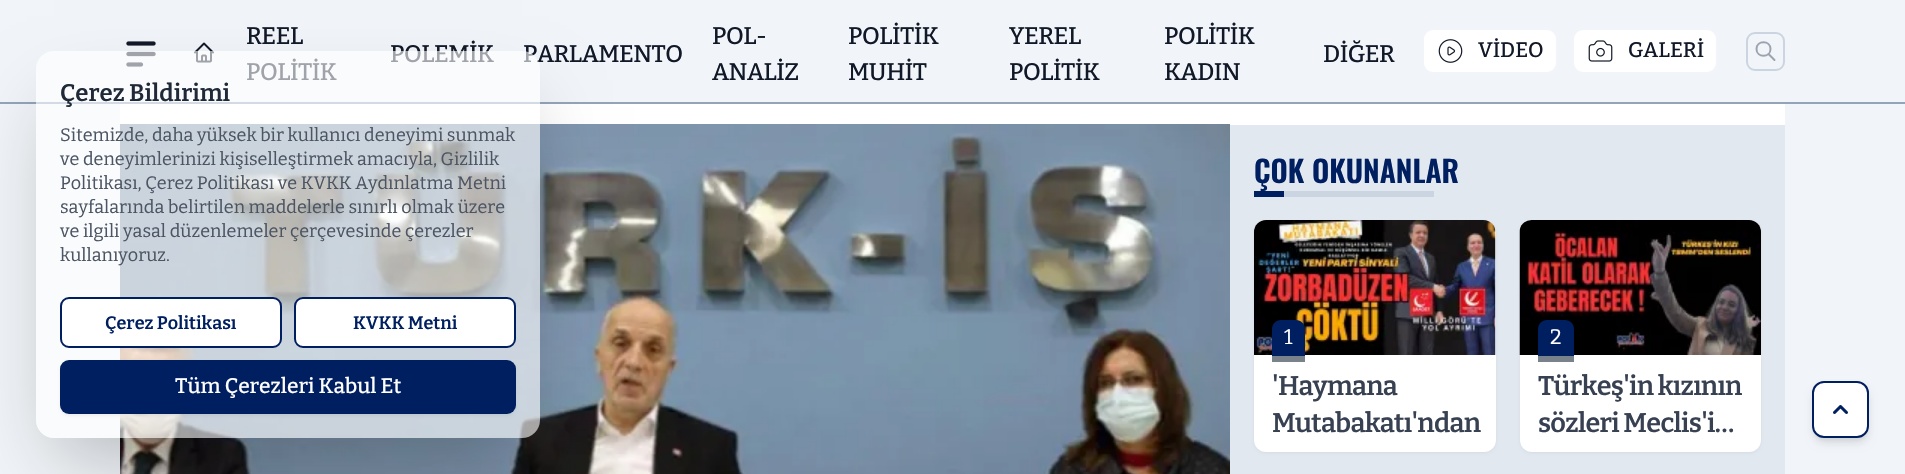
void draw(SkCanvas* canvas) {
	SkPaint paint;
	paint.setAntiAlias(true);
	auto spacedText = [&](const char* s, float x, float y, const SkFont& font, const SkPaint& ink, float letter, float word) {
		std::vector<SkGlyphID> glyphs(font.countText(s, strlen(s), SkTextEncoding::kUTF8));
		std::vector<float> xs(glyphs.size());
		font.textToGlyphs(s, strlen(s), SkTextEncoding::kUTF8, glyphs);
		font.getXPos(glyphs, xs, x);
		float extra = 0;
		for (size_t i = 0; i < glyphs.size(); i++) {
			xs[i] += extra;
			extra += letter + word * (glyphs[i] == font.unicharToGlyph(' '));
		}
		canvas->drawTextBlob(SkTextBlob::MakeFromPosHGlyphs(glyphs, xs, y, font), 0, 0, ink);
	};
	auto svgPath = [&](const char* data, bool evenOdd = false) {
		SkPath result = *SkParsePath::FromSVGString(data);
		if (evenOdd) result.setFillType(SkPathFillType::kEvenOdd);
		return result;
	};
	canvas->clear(0xfff1f5f9);
	paint.setColor(0xff94a3b8);
	canvas->drawRect(SkRect::MakeXYWH(0, 102, 1905, 2), paint);
	canvas->drawImageRect(SkImages::DeferredFromEncodedData(SkData::MakeFromFileName("img1.png")), SkRect::MakeXYWH(126, 41, 30, 26), SkSamplingOptions());
	canvas->drawImageRect(SkImages::DeferredFromEncodedData(SkData::MakeFromFileName("img2.png")), SkRect::MakeXYWH(194, 42, 20, 21), SkSamplingOptions());
	SkFont f1(fontMgr->matchFamilyStyle("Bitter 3", SkFontStyle(100, SkFontStyle::kNormal_Width, SkFontStyle::kUpright_Slant)), 24);
	f1.setSubpixel(true);
	paint.setColor(0xff111827);
	spacedText("REEL", 246, 44, f1, paint, -0.5, 0);
	spacedText("POLİTİK", 246, 80, f1, paint, -0.5, 0);
	spacedText("POLEMİK", 390, 62, f1, paint, -0.5, 0);
	spacedText("PARLAMENTO", 523, 62, f1, paint, -0.5, 0);
	spacedText("POL-", 712, 44, f1, paint, -0.5, 0);
	spacedText("ANALİZ", 712, 80, f1, paint, -0.5, 0);
	spacedText("POLİTİK", 848, 44, f1, paint, -0.5, 0);
	spacedText("MUHİT", 848, 80, f1, paint, -0.5, 0);
	spacedText("YEREL", 1009, 44, f1, paint, -0.5, 0);
	spacedText("POLİTİK", 1009, 80, f1, paint, -0.5, 0);
	spacedText("POLİTİK", 1164, 44, f1, paint, -0.5, 0);
	spacedText("KADIN", 1164, 80, f1, paint, -0.5, 0);
	spacedText("DİĞER", 1323, 62, f1, paint, -0.5, 0);
	paint.setColor(0xffffffff);
	canvas->drawRoundRect(SkRect::MakeXYWH(1424, 30, 132, 42), 9, 9, paint);
	canvas->drawImageRect(SkImages::DeferredFromEncodedData(SkData::MakeFromFileName("img3.png")), SkRect::MakeXYWH(1438, 39, 25, 24), SkSamplingOptions());
	SkFont f2(fontMgr->matchFamilyStyle("Bitter 3", SkFontStyle(100, SkFontStyle::kNormal_Width, SkFontStyle::kUpright_Slant)), 21);
	f2.setSubpixel(true);
	paint.setColor(0xff111827);
	canvas->drawString("VİDEO", 1478, 57, f2, paint);
	paint.setColor(0xffffffff);
	canvas->drawRoundRect(SkRect::MakeXYWH(1574, 30, 142, 42), 9, 9, paint);
	canvas->drawImageRect(SkImages::DeferredFromEncodedData(SkData::MakeFromFileName("img4.png")), SkRect::MakeXYWH(1588, 40, 25, 22), SkSamplingOptions());
	paint.setColor(0xff111827);
	canvas->drawString("GALERİ", 1628, 57, f2, paint);
	paint.setStroke(true);
	paint.setStrokeWidth(2);
	paint.setColor(0xffcbd5e1);
	canvas->drawRoundRect(SkRect::MakeXYWH(1747, 33, 37, 37), 8, 8, paint);
	paint.setStrokeCap(SkPaint::kRound_Cap);
	paint.setStrokeJoin(SkPaint::kRound_Join);
	paint.setColor(0xff9ca3af);
	canvas->drawPath(svgPath("M1774.5 60L1768.5 54M1770.5 49C1770.5 58 1756.5 58 1756.5 49C1756.5 40 1770.5 40 1770.5 49Z"), paint);
	paint.setStroke(false);
	paint.setColor(0xffffffff);
	canvas->drawRect(SkRect::MakeXYWH(120, 104, 1665, 21), paint);
	canvas->drawImageRect(SkImages::DeferredFromEncodedData(SkData::MakeFromFileName("img5.png")), SkRect::MakeXYWH(120, 124, 1110, 350), SkSamplingOptions());
	paint.setColor(0xffe2e8f0);
	canvas->drawRect(SkRect::MakeXYWH(1230, 125, 555, 349), paint);
	SkFont f3(fontMgr->matchFamilyStyle("Oswald", SkFontStyle(600, SkFontStyle::kNormal_Width, SkFontStyle::kUpright_Slant)), 30);
	f3.setSubpixel(true);
	paint.setColor(0xff001f60);
	canvas->drawString("ÇOK OKUNANLAR", 1254, 183, f3, paint);
	canvas->drawRect(SkRect::MakeXYWH(1254, 191, 30, 6), paint);
	paint.setColor(0xffcbd5e1);
	canvas->drawRect(SkRect::MakeXYWH(1284, 191, 150, 6), paint);
	paint.setColor(0x0d000000);
	paint.setMaskFilter(SkMaskFilter::MakeBlur(kNormal_SkBlurStyle, 1.5));
	canvas->drawRoundRect(SkRect::MakeXYWH(1254, 222, 242, 231), 12, 12, paint);
	paint.setMaskFilter(nullptr);
	paint.setColor(0xffffffff);
	canvas->drawRoundRect(SkRect::MakeXYWH(1254, 221, 242, 231), 12, 12, paint);
	canvas->drawImageRect(SkImages::DeferredFromEncodedData(SkData::MakeFromFileName("img6.png")), SkRect::MakeXYWH(1254, 220, 242, 135), SkSamplingOptions());
	paint.setColor(0xff001f60);
	canvas->drawPath(svgPath("M1281 320H1296C1301 320 1305 324 1305 329V356H1272V329C1272 324 1276 320 1281 320Z"), paint);
	paint.setColor(0xff79818b);
	canvas->drawRect(SkRect::MakeXYWH(1272, 356, 33, 6), paint);
	SkFont f4(fontMgr->matchFamilyStyle("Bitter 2", SkFontStyle(100, SkFontStyle::kNormal_Width, SkFontStyle::kUpright_Slant)), 21);
	f4.setSubpixel(true);
	paint.setColor(0xffffffff);
	canvas->drawString("1", 1284, 344, f4, paint);
	SkFont f5(fontMgr->matchFamilyStyle("Bitter", SkFontStyle(100, SkFontStyle::kNormal_Width, SkFontStyle::kUpright_Slant)), 27);
	f5.setSubpixel(true);
	paint.setColor(0xff374151);
	spacedText("'Haymana", 1272, 395, f5, paint, -0.7, 0);
	spacedText("Mutabakatı'ndan", 1272, 432, f5, paint, -0.7, 0);
	paint.setColor(0x0d000000);
	paint.setMaskFilter(SkMaskFilter::MakeBlur(kNormal_SkBlurStyle, 1.5));
	canvas->drawRoundRect(SkRect::MakeXYWH(1520, 222, 241, 231), 12, 12, paint);
	paint.setMaskFilter(nullptr);
	paint.setColor(0xffffffff);
	canvas->drawRoundRect(SkRect::MakeXYWH(1520, 221, 241, 231), 12, 12, paint);
	canvas->drawImageRect(SkImages::DeferredFromEncodedData(SkData::MakeFromFileName("img7.png")), SkRect::MakeXYWH(1519, 220, 242, 135), SkSamplingOptions());
	paint.setColor(0xff001f60);
	canvas->drawPath(svgPath("M1547 320H1565C1570 320 1574 324 1574 329V356H1538V329C1538 324 1542 320 1547 320Z"), paint);
	paint.setColor(0xff79818b);
	canvas->drawRect(SkRect::MakeXYWH(1538, 356, 36, 6), paint);
	paint.setColor(0xffffffff);
	canvas->drawString("2", 1550, 344, f4, paint);
	paint.setColor(0xff374151);
	spacedText("Türkeş'in kızının", 1538, 395, f5, paint, -0.7, 0);
	spacedText("sözleri Meclis'i…", 1538, 432, f5, paint, -0.7, 0);
	canvas->save();
	canvas->clipPath(svgPath("M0 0H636V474H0ZM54 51H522C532 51 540 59 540 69V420C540 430 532 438 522 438H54C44 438 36 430 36 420V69C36 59 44 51 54 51Z", true), true);
	paint.setColor(0x40000000);
	paint.setMaskFilter(SkMaskFilter::MakeBlur(kNormal_SkBlurStyle, 37.5));
	canvas->drawRect(SkRect::MakeXYWH(54, 107, 468, 351), paint);
	paint.setMaskFilter(nullptr);
	canvas->restore();
	paint.setColor(0x99ffffff);
	canvas->drawRoundRect(SkRect::MakeXYWH(36, 51, 504, 387), 18, 18, paint);
	SkFont f6(fontMgr->matchFamilyStyle("Bitter", SkFontStyle(100, SkFontStyle::kNormal_Width, SkFontStyle::kUpright_Slant)), 24);
	f6.setSubpixel(true);
	paint.setColor(0xff1f2937);
	canvas->drawString("Çerez Bildirimi", 60, 101, f6, paint);
	SkFont f7(fontMgr->matchFamilyStyle("Bitter 2", SkFontStyle(100, SkFontStyle::kNormal_Width, SkFontStyle::kUpright_Slant)), 18);
	f7.setSubpixel(true);
	paint.setColor(0xff4b5563);
	canvas->drawString("Sitemizde, daha yüksek bir kullanıcı deneyimi sunmak", 60, 141, f7, paint);
	canvas->drawString("ve deneyimlerinizi kişiselleştirmek amacıyla, Gizlilik", 60, 165, f7, paint);
	canvas->drawString("Politikası, Çerez Politikası ve KVKK Aydınlatma Metni", 60, 189, f7, paint);
	canvas->drawString("sayfalarında belirtilen maddelerle sınırlı olmak üzere", 60, 213, f7, paint);
	canvas->drawString("ve ilgili yasal düzenlemeler çerçevesinde çerezler", 60, 237, f7, paint);
	canvas->drawString("kullanıyoruz.", 60, 261, f7, paint);
	paint.setColor(0xffffffff);
	canvas->drawRoundRect(SkRect::MakeXYWH(61, 298, 220, 49), 8, 8, paint);
	paint.setStroke(true);
	paint.setStrokeCap(SkPaint::kButt_Cap);
	paint.setStrokeJoin(SkPaint::kMiter_Join);
	paint.setColor(0xff001f60);
	canvas->drawRoundRect(SkRect::MakeXYWH(61, 298, 220, 49), 8, 8, paint);
	SkFont f8(fontMgr->matchFamilyStyle("Bitter", SkFontStyle(100, SkFontStyle::kNormal_Width, SkFontStyle::kUpright_Slant)), 18);
	f8.setSubpixel(true);
	paint.setStroke(false);
	canvas->drawString("Çerez Politikası", 105, 329, f8, paint);
	paint.setColor(0xffffffff);
	canvas->drawRoundRect(SkRect::MakeXYWH(295, 298, 220, 49), 8, 8, paint);
	paint.setStroke(true);
	paint.setColor(0xff001f60);
	canvas->drawRoundRect(SkRect::MakeXYWH(295, 298, 220, 49), 8, 8, paint);
	paint.setStroke(false);
	canvas->drawString("KVKK Metni", 353, 329, f8, paint);
	paint.setColor(0x0d000000);
	paint.setMaskFilter(SkMaskFilter::MakeBlur(kNormal_SkBlurStyle, 1.5));
	canvas->drawRoundRect(SkRect::MakeXYWH(60, 362, 456, 54), 9, 9, paint);
	paint.setMaskFilter(nullptr);
	paint.setColor(0xff001f60);
	canvas->drawRoundRect(SkRect::MakeXYWH(60, 360, 456, 54), 9, 9, paint);
	paint.setColor(0xffffffff);
	canvas->drawString("Tüm Çerezleri Kabul Et", 175, 393, f2, paint);
	paint.setColor(0x1a000000);
	paint.setMaskFilter(SkMaskFilter::MakeBlur(kNormal_SkBlurStyle, 3));
	canvas->drawRoundRect(SkRect::MakeXYWH(1815, 387, 51, 51), 9, 9, paint);
	paint.setMaskFilter(nullptr);
	paint.setMaskFilter(SkMaskFilter::MakeBlur(kNormal_SkBlurStyle, 4.5));
	canvas->drawRoundRect(SkRect::MakeXYWH(1814, 389, 54, 54), 11, 11, paint);
	paint.setMaskFilter(nullptr);
	paint.setColor(0xffffffff);
	canvas->drawRoundRect(SkRect::MakeXYWH(1813, 382, 55, 55), 11, 11, paint);
	paint.setStroke(true);
	paint.setColor(0xff001f60);
	canvas->drawRoundRect(SkRect::MakeXYWH(1813, 382, 55, 55), 11, 11, paint);
	canvas->drawImageRect(SkImages::DeferredFromEncodedData(SkData::MakeFromFileName("img8.png")), SkRect::MakeXYWH(1833, 405, 15, 9), SkSamplingOptions());
}
